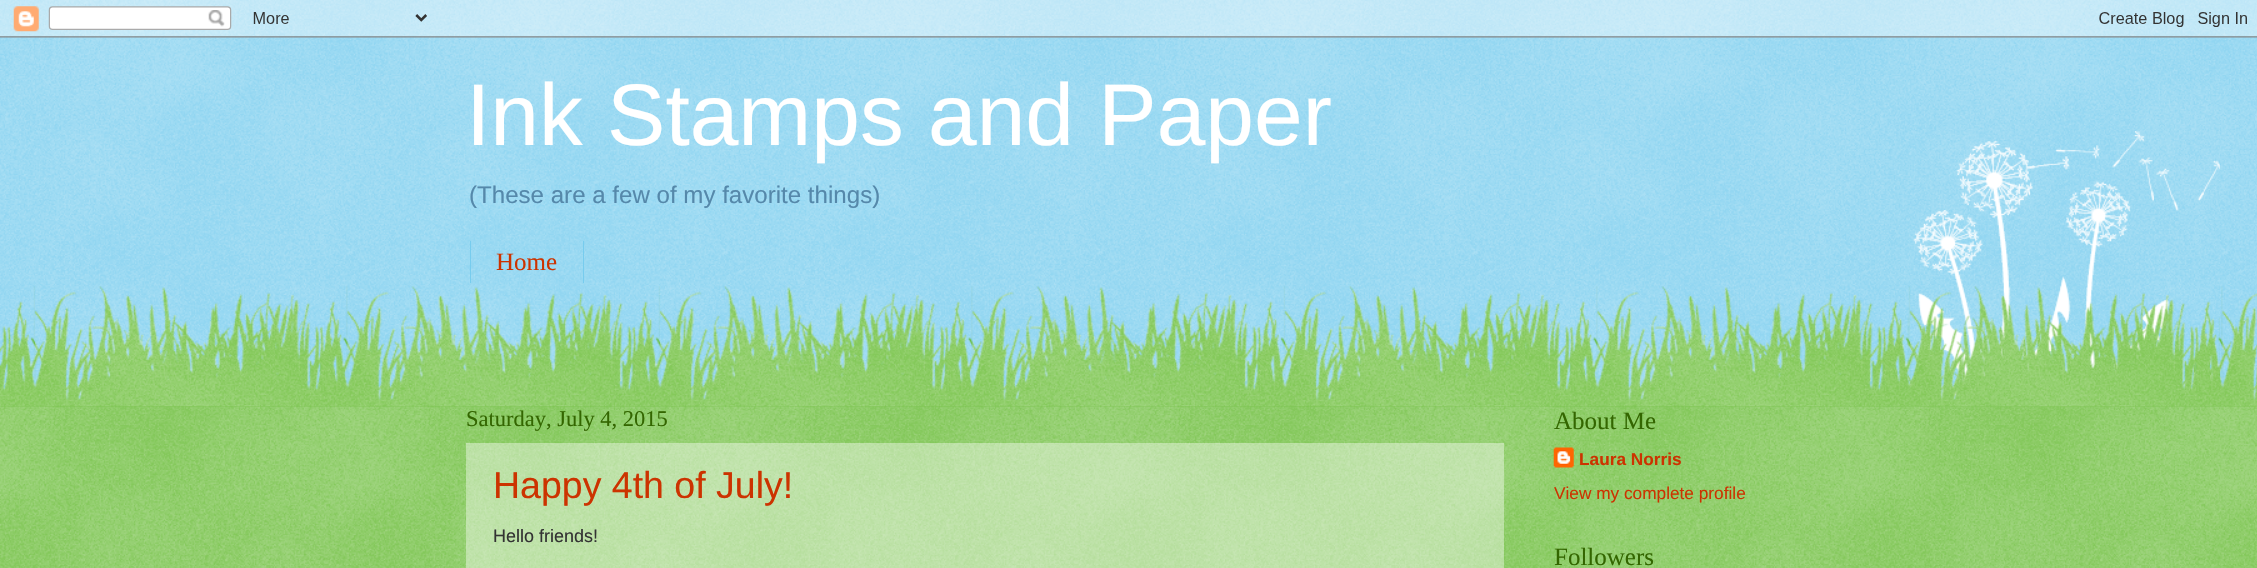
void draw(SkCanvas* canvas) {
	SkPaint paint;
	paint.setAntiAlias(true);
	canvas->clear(0xff77ccee);
	canvas->drawImageRect(SkImages::DeferredFromEncodedData(SkData::MakeFromFileName("img1.png")), SkRect::MakeXYWH(0, 0, 2257, 401), SkSamplingOptions());
	canvas->drawImageRect(SkImages::DeferredFromEncodedData(SkData::MakeFromFileName("img2.png")), SkRect::MakeXYWH(0, 0, 2257, 38), SkSamplingOptions());
	SkFont f1(fontMgr->matchFamilyStyle("Liberation Sans", SkFontStyle::Normal()), 87.5);
	f1.setSubpixel(true);
	paint.setColor(0xffffffff);
	canvas->drawString("Ink Stamps and Paper", 466, 145, f1, paint);
	SkFont f2(fontMgr->matchFamilyStyle("Liberation Sans", SkFontStyle::Normal()), 24.1);
	f2.setSubpixel(true);
	paint.setColor(0xff5588aa);
	canvas->drawString("(These are a few of my favorite things)", 469, 203, f2, paint);
	paint.setColor(0xff77ccee);
	canvas->drawRect(SkRect::MakeXYWH(583, 241, 1, 42), paint);
	canvas->drawRect(SkRect::MakeXYWH(470, 241, 1, 42), paint);
	SkFont f3(fontMgr->matchFamilyStyle("Liberation Serif", SkFontStyle::Normal()), 25);
	f3.setSubpixel(true);
	paint.setColor(0xffcc3300);
	canvas->drawString("Home", 496, 270, f3, paint);
	paint.setColor(0xff66bb33);
	canvas->drawRect(SkRect::MakeXYWH(0, 406, 2257, 162), paint);
	canvas->drawImageRect(SkImages::DeferredFromEncodedData(SkData::MakeFromFileName("img3.png")), SkRect::MakeXYWH(0, 406, 2257, 162), SkSamplingOptions());
	canvas->drawImageRect(SkImages::DeferredFromEncodedData(SkData::MakeFromFileName("img4.png")), SkRect::MakeXYWH(1907, 131, 313, 276), SkSamplingOptions());
	canvas->drawImageRect(SkImages::DeferredFromEncodedData(SkData::MakeFromFileName("img5.png")), SkRect::MakeXYWH(0, 286, 2257, 121), SkSamplingOptions());
	SkFont f4(fontMgr->matchFamilyStyle("Liberation Serif", SkFontStyle::Normal()), 22.5);
	f4.setSubpixel(true);
	paint.setColor(0xff336600);
	canvas->drawString("Saturday, July 4, 2015", 466, 426, f4, paint);
	paint.setColor(0x66ffffff);
	canvas->drawRect(SkRect::MakeXYWH(466, 443, 1038, 125), paint);
	SkFont f5(fontMgr->matchFamilyStyle("Liberation Sans", SkFontStyle::Normal()), 37.5);
	f5.setSubpixel(true);
	paint.setColor(0xffcc3300);
	canvas->drawString("Happy 4th of July!", 493, 498, f5, paint);
	SkFont f6(fontMgr->matchFamilyStyle("Liberation Sans", SkFontStyle::Normal()), 18);
	f6.setSubpixel(true);
	paint.setColor(0xff333333);
	canvas->drawString("Hello friends!", 493, 542, f6, paint);
	paint.setColor(0xff336600);
	canvas->drawString("About Me", 1554, 429, f3, paint);
	canvas->drawImageRect(SkImages::DeferredFromEncodedData(SkData::MakeFromFileName("img6.png")), SkRect::MakeXYWH(1553, 447, 21, 21), SkSamplingOptions());
	SkFont f7(fontMgr->matchFamilyStyle("Liberation Sans", SkFontStyle::Bold()), 17.25);
	f7.setSubpixel(true);
	paint.setColor(0xffcc3300);
	canvas->drawString("Laura Norris", 1579, 465, f7, paint);
	SkFont f8(fontMgr->matchFamilyStyle("Liberation Sans", SkFontStyle::Normal()), 17.25);
	f8.setSubpixel(true);
	canvas->drawString("View my complete profile", 1554, 499, f8, paint);
	paint.setColor(0xff336600);
	canvas->drawString("Followers", 1554, 565, f3, paint);
}
